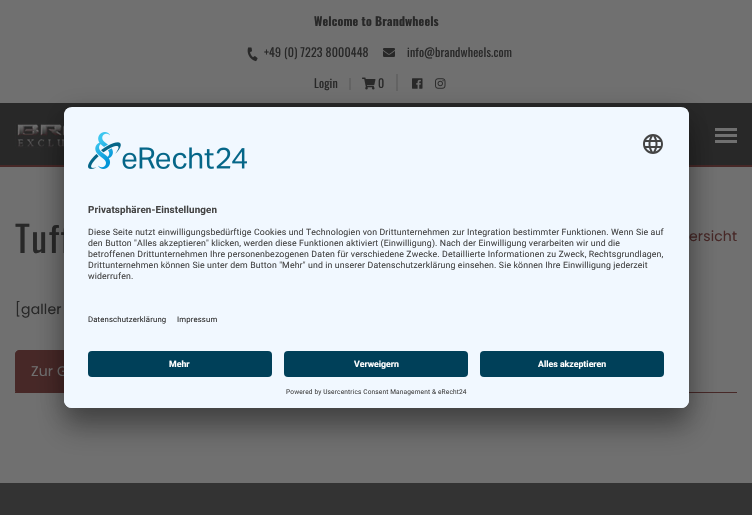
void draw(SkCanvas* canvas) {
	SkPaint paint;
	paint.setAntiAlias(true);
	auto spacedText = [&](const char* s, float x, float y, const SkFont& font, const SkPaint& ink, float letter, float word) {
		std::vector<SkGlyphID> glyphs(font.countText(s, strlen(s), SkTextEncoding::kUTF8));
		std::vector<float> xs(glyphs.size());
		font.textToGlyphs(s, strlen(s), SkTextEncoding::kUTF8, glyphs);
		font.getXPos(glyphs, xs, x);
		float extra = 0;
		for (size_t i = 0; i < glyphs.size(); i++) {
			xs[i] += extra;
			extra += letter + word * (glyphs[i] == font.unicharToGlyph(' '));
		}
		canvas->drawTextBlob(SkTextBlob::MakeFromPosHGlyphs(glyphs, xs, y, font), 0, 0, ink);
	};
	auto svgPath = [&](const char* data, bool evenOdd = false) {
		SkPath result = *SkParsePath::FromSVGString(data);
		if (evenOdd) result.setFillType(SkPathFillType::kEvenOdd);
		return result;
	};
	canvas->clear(0xff707070);
	SkFont f1(fontMgr->matchFamilyStyle("Oswald", SkFontStyle::Bold()), 12);
	f1.setSubpixel(true);
	paint.setColor(0xff282828);
	spacedText("Welcome to Brandwheels", 314, 26, f1, paint, 0.14, 0);
	canvas->drawImageRect(SkImages::DeferredFromEncodedData(SkData::MakeFromFileName("img1.png")), SkRect::MakeXYWH(247, 47, 11, 15), SkSamplingOptions());
	SkFont f2(fontMgr->matchFamilyStyle("Oswald", SkFontStyle::Normal()), 12);
	f2.setSubpixel(true);
	spacedText("+49 (0) 7223 8000448", 264, 57, f2, paint, 0.14, 0);
	canvas->drawImageRect(SkImages::DeferredFromEncodedData(SkData::MakeFromFileName("img2.png")), SkRect::MakeXYWH(383, 48, 12, 9), SkSamplingOptions());
	spacedText("info@brandwheels.com", 407, 57, f2, paint, 0.14, 0);
	spacedText("Login", 314, 88, f2, paint, 0.14, 0);
	paint.setColor(0xff636363);
	canvas->drawRect(SkRect::MakeXYWH(349, 78, 2, 12), paint);
	canvas->drawRect(SkRect::MakeXYWH(396, 74, 2, 17), paint);
	canvas->drawImageRect(SkImages::DeferredFromEncodedData(SkData::MakeFromFileName("img3.png")), SkRect::MakeXYWH(362, 77, 14, 13), SkSamplingOptions());
	paint.setColor(0xff282828);
	spacedText("0", 378, 88, f2, paint, 0.14, 0);
	canvas->drawImageRect(SkImages::DeferredFromEncodedData(SkData::MakeFromFileName("img4.png")), SkRect::MakeXYWH(412, 78, 11, 11), SkSamplingOptions());
	canvas->drawImageRect(SkImages::DeferredFromEncodedData(SkData::MakeFromFileName("img5.png")), SkRect::MakeXYWH(435, 78, 11, 11), SkSamplingOptions());
	canvas->drawRect(SkRect::MakeXYWH(0, 103, 752, 62), paint);
	paint.setColor(0xff472827);
	canvas->drawRect(SkRect::MakeXYWH(0, 165, 752, 2), paint);
	canvas->drawImageRect(SkImages::DeferredFromEncodedData(SkData::MakeFromFileName("img6.png")), SkRect::MakeXYWH(15, 123, 49, 25), SkSamplingOptions());
	paint.setColor(0xff707070);
	canvas->drawRect(SkRect::MakeXYWH(715, 128, 22, 3), paint);
	canvas->drawRect(SkRect::MakeXYWH(715, 134, 22, 3), paint);
	canvas->drawRect(SkRect::MakeXYWH(715, 140, 22, 3), paint);
	SkFont f3(fontMgr->matchFamilyStyle("Oswald", SkFontStyle::Normal()), 36);
	f3.setSubpixel(true);
	paint.setColor(0xff282828);
	spacedText("Tuff", 15, 253, f3, paint, 1.5, 0);
	SkFont f4(fontMgr->matchFamilyStyle("Poppins", SkFontStyle::Normal()), 14);
	f4.setSubpixel(true);
	paint.setColor(0xff472827);
	spacedText("ersicht", 689, 241, f4, paint, 0.14, 0);
	paint.setColor(0xff282828);
	spacedText("[galler", 15, 314, f4, paint, 0.14, 0);
	paint.setColor(0xff472827);
	canvas->drawRect(SkRect::MakeXYWH(15, 392, 722, 1), paint);
	canvas->drawPath(svgPath("M19 350.5H120C122 350.5 123.5 352 123.5 354V391.5H15.5V354C15.5 352 17 350.5 19 350.5Z"), paint);
	paint.setStroke(true);
	paint.setStrokeWidth(1);
	canvas->drawPath(svgPath("M19 350.5H120C122 350.5 123.5 352 123.5 354V391.5H15.5V354C15.5 352 17 350.5 19 350.5Z"), paint);
	paint.setStroke(false);
	paint.setColor(0xff707070);
	spacedText("Zur G", 31, 376, f4, paint, 0.14, 0);
	paint.setColor(0xff333333);
	canvas->drawRect(SkRect::MakeXYWH(0, 483, 752, 32), paint);
	paint.setColor(0x4d000000);
	paint.setMaskFilter(SkMaskFilter::MakeBlur(kNormal_SkBlurStyle, 14));
	canvas->drawRoundRect(SkRect::MakeXYWH(64, 127, 625, 301), 8, 8, paint);
	paint.setMaskFilter(nullptr);
	paint.setColor(0x38000000);
	paint.setMaskFilter(SkMaskFilter::MakeBlur(kNormal_SkBlurStyle, 13));
	canvas->drawRoundRect(SkRect::MakeXYWH(64, 112, 625, 301), 8, 8, paint);
	paint.setMaskFilter(nullptr);
	paint.setColor(0xfff1f8ff);
	canvas->drawRoundRect(SkRect::MakeXYWH(64, 107, 625, 301), 8, 8, paint);
	canvas->save();
	canvas->clipPath(svgPath("M72 107H681C685.5 107 689 110.5 689 115V400C689 404.5 685.5 408 681 408H72C67.5 408 64 404.5 64 400V115C64 110.5 67.5 107 72 107Z"), true);
	canvas->clipPath(svgPath("M72 107H681C685.5 107 689 110.5 689 115V343H64V115C64 110.5 67.5 107 72 107Z"), true);
	canvas->drawRect(SkRect::MakeXYWH(64, 108, 625, 235), paint);
	canvas->restore();
	canvas->drawImageRect(SkImages::DeferredFromEncodedData(SkData::MakeFromFileName("img7.png")), SkRect::MakeXYWH(88, 132, 159, 37), SkSamplingOptions());
	canvas->drawImageRect(SkImages::DeferredFromEncodedData(SkData::MakeFromFileName("img8.png")), SkRect::MakeXYWH(643, 134, 20, 20), SkSamplingOptions());
	SkFont f5(fontMgr->matchFamilyStyle("Roboto", SkFontStyle::Bold()), 9.8);
	f5.setSubpixel(true);
	paint.setColor(0xff444444);
	spacedText("Privatsphären-Einstellungen", 88, 213, f5, paint, 0.14, 0);
	SkFont f6(fontMgr->matchFamilyStyle("Roboto", SkFontStyle::Normal()), 8.75);
	f6.setSubpixel(true);
	spacedText("Diese Seite nutzt einwilligungsbedürftige Cookies und Technologien von Drittunternehmen zur Integration bestimmter Funktionen. Wenn Sie auf", 88, 235, f6, paint, 0.14, 0);
	spacedText("den Button \"Alles akzeptieren\" klicken, werden diese Funktionen aktiviert (Einwilligung). Nach der Einwilligung verarbeiten wir und die", 88, 246, f6, paint, 0.14, 0);
	spacedText("betroffenen Drittunternehmen Ihre personenbezogenen Daten für verschiedene Zwecke. Detaillierte Informationen zu Zweck, Rechtsgrundlagen,", 88, 257, f6, paint, 0.14, 0);
	spacedText("Drittunternehmen können Sie unter dem Button \"Mehr\" und in unserer Datenschutzerklärung einsehen. Sie können Ihre Einwilligung jederzeit", 88, 268, f6, paint, 0.14, 0);
	spacedText("widerrufen.", 88, 279, f6, paint, 0.14, 0);
	SkFont f7(fontMgr->matchFamilyStyle("Roboto", SkFontStyle::Normal()), 7.75);
	f7.setSubpixel(true);
	paint.setColor(0xff303030);
	spacedText("Datenschutzerklärung", 88, 322, f7, paint, 0.14, 0);
	spacedText("Impressum", 177, 322, f7, paint, 0.14, 0);
	paint.setColor(0xfff1f8ff);
	canvas->drawPath(svgPath("M64 343H689V400C689 404.5 685.5 408 681 408H72C67.5 408 64 404.5 64 400Z"), paint);
	paint.setColor(0xff004059);
	canvas->drawRoundRect(SkRect::MakeXYWH(88, 351, 184, 26), 4, 4, paint);
	SkFont f8(fontMgr->matchFamilyStyle("Roboto", SkFontStyle::Bold()), 8.75);
	f8.setSubpixel(true);
	paint.setColor(0xffffffff);
	canvas->drawString("Mehr", 169, 367, f8, paint);
	paint.setColor(0xff004059);
	canvas->drawRoundRect(SkRect::MakeXYWH(284, 351, 184, 26), 4, 4, paint);
	paint.setColor(0xffffffff);
	canvas->drawString("Verweigern", 354, 367, f8, paint);
	paint.setColor(0xff004059);
	canvas->drawRoundRect(SkRect::MakeXYWH(480, 351, 184, 26), 4, 4, paint);
	paint.setColor(0xffffffff);
	canvas->drawString("Alles akzeptieren", 538, 367, f8, paint);
	SkFont f9(fontMgr->matchFamilyStyle("Roboto", SkFontStyle::Normal()), 6.55);
	f9.setSubpixel(true);
	paint.setColor(0xff444444);
	spacedText("Powered by Usercentrics Consent Management & eRecht24", 286, 394, f9, paint, 0.14, 0);
}
